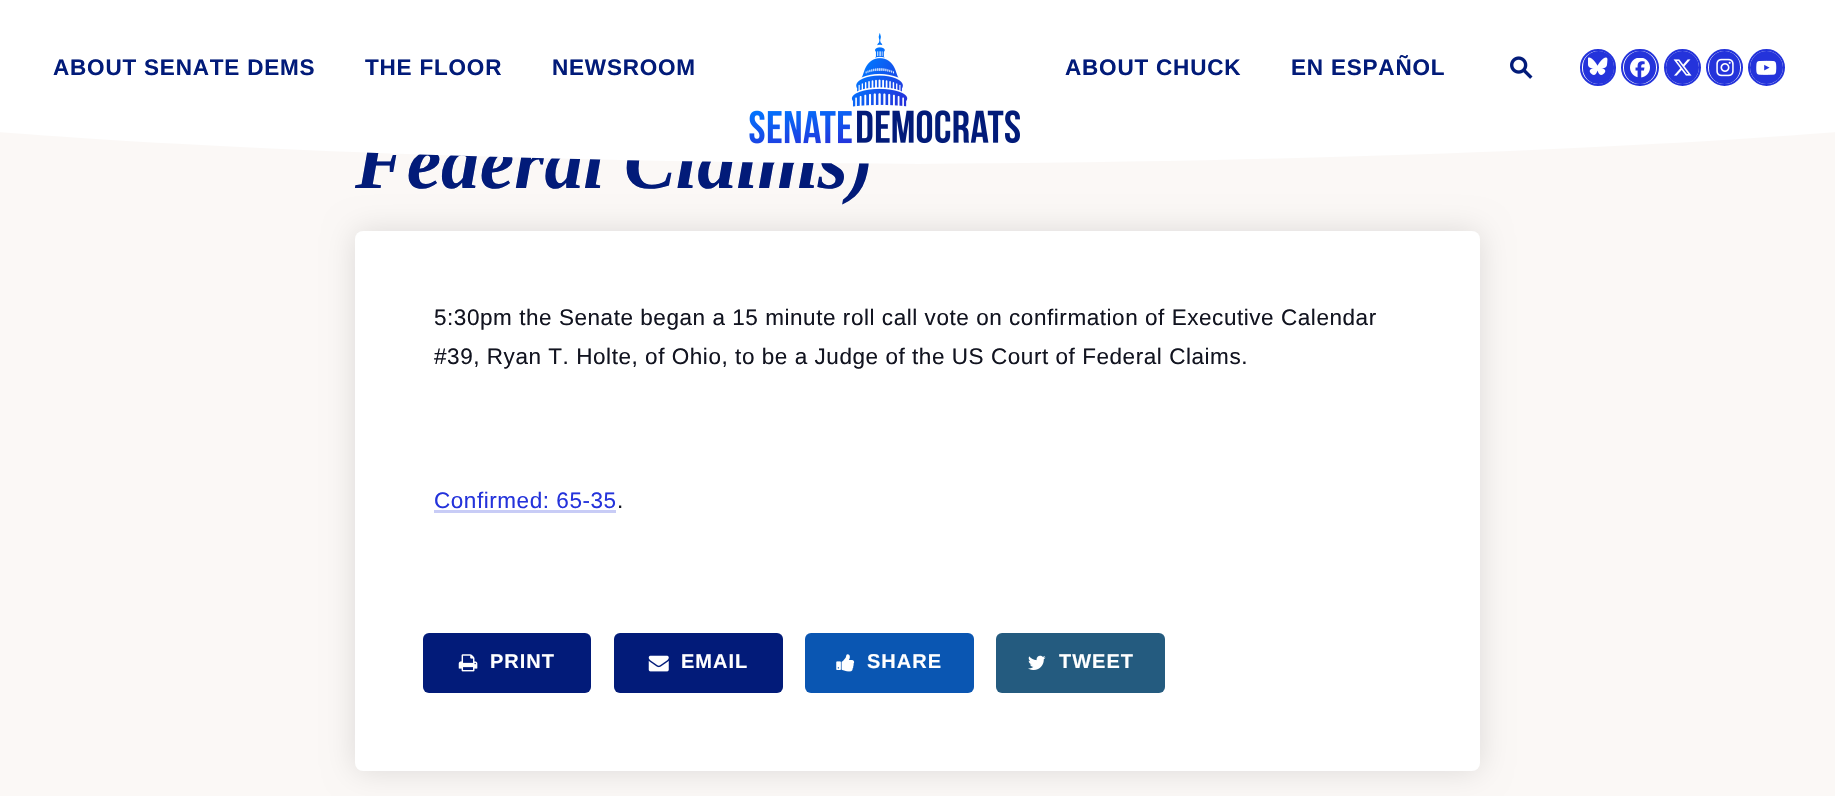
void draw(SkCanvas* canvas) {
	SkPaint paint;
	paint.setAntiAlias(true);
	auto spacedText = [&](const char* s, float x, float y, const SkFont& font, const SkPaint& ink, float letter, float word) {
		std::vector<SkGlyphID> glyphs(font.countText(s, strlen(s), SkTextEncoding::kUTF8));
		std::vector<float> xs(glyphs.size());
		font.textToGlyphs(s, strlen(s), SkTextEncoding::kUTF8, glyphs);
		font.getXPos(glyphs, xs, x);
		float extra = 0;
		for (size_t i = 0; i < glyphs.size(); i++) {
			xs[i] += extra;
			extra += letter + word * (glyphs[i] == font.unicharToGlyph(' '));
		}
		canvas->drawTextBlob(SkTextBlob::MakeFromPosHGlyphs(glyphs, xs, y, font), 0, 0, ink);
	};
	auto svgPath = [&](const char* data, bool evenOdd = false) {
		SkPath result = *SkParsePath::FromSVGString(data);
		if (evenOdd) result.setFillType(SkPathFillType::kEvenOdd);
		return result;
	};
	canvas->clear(0xfffbf8f6);
	paint.setColor(0xffffffff);
	canvas->drawRect(SkRect::MakeXYWH(0, 0, 1835, 124), paint);
	SkFont f1(fontMgr->matchFamilyStyle("Arimo", SkFontStyle::Bold()), 22.5);
	f1.setSubpixel(true);
	paint.setColor(0xff021b79);
	spacedText("ABOUT SENATE DEMS", 53, 75, f1, paint, 0.8, 0);
	spacedText("THE FLOOR", 365, 75, f1, paint, 0.8, 0);
	spacedText("NEWSROOM", 552, 75, f1, paint, 0.8, 0);
	paint.setColor(0x1f000000);
	paint.setMaskFilter(SkMaskFilter::MakeBlur(kNormal_SkBlurStyle, 15.5));
	canvas->drawRoundRect(SkRect::MakeXYWH(355, 231, 1125, 540), 8, 8, paint);
	paint.setMaskFilter(nullptr);
	SkFont f2(fontMgr->matchFamilyStyle("Tinos", SkFontStyle::BoldItalic()), 77.5);
	f2.setSubpixel(true);
	paint.setColor(0xff021b79);
	canvas->drawString("Federal Claims)", 355, 188, f2, paint);
	paint.setColor(0xffffffff);
	canvas->drawPath(svgPath("M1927 124C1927 124 1615 160 918 164C220 160-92 124-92 124"), paint);
	canvas->drawImageRect(SkImages::DeferredFromEncodedData(SkData::MakeFromFileName("img1.png")), SkRect::MakeXYWH(749, 33, 271, 111), SkSamplingOptions());
	paint.setColor(0xff021b79);
	spacedText("ABOUT CHUCK", 1065, 75, f1, paint, 0.8, 0);
	spacedText("EN ESPAÑOL", 1291, 75, f1, paint, 0.8, 0);
	canvas->drawImageRect(SkImages::DeferredFromEncodedData(SkData::MakeFromFileName("img2.png")), SkRect::MakeXYWH(1510, 56, 23, 23), SkSamplingOptions());
	paint.setStroke(true);
	paint.setStrokeWidth(2);
	paint.setColor(0xff2433db);
	canvas->drawRoundRect(SkRect::MakeXYWH(1581, 50, 34, 35), 17, 17, paint);
	paint.setStroke(false);
	canvas->drawRoundRect(SkRect::MakeXYWH(1583, 51, 31, 33), 15.5, 15.5, paint);
	canvas->drawImageRect(SkImages::DeferredFromEncodedData(SkData::MakeFromFileName("img3.png")), SkRect::MakeXYWH(1588, 57, 20, 18), SkSamplingOptions());
	paint.setStroke(true);
	canvas->drawRoundRect(SkRect::MakeXYWH(1622, 50, 36, 35), 17.5, 17.5, paint);
	paint.setStroke(false);
	canvas->drawRoundRect(SkRect::MakeXYWH(1624, 51, 32, 33), 16, 16, paint);
	canvas->drawImageRect(SkImages::DeferredFromEncodedData(SkData::MakeFromFileName("img4.png")), SkRect::MakeXYWH(1630, 58, 20, 20), SkSamplingOptions());
	paint.setStroke(true);
	canvas->drawCircle(1682.5, 67.5, 17.5, paint);
	paint.setStroke(false);
	canvas->drawCircle(1682.5, 67.5, 16.5, paint);
	canvas->drawImageRect(SkImages::DeferredFromEncodedData(SkData::MakeFromFileName("img5.png")), SkRect::MakeXYWH(1673, 59, 19, 17), SkSamplingOptions());
	paint.setStroke(true);
	canvas->drawCircle(1724.5, 67.5, 17.5, paint);
	paint.setStroke(false);
	canvas->drawRoundRect(SkRect::MakeXYWH(1709, 51, 31, 33), 15.5, 15.5, paint);
	canvas->drawImageRect(SkImages::DeferredFromEncodedData(SkData::MakeFromFileName("img6.png")), SkRect::MakeXYWH(1716, 58, 18, 19), SkSamplingOptions());
	paint.setStroke(true);
	canvas->drawCircle(1766.5, 67.5, 17.5, paint);
	paint.setStroke(false);
	canvas->drawCircle(1766.5, 67.5, 16.5, paint);
	canvas->drawImageRect(SkImages::DeferredFromEncodedData(SkData::MakeFromFileName("img7.png")), SkRect::MakeXYWH(1756, 60, 21, 15), SkSamplingOptions());
	paint.setColor(0xffffffff);
	canvas->drawRoundRect(SkRect::MakeXYWH(355, 231, 1125, 540), 8, 8, paint);
	SkFont f3(fontMgr->matchFamilyStyle("Arimo", SkFontStyle::Normal()), 22.5);
	f3.setSubpixel(true);
	paint.setColor(0xff121420);
	spacedText("5:30pm the Senate began a 15 minute roll call vote on confirmation of Executive Calendar", 434, 325, f3, paint, 0.55, 0);
	spacedText("#39, Ryan T. Holte, of Ohio, to be a Judge of the US Court of Federal Claims.", 434, 364, f3, paint, 0.55, 0);
	paint.setColor(0xff2433db);
	spacedText("Confirmed: 65-35", 434, 508, f3, paint, 0.55, 0);
	paint.setColor(0xff121420);
	spacedText(".", 617, 508, f3, paint, 0.55, 0);
	paint.setColor(0xffc8ccf6);
	canvas->drawRect(SkRect::MakeXYWH(434, 510, 182, 3), paint);
	paint.setColor(0xff021b79);
	canvas->drawRoundRect(SkRect::MakeXYWH(423, 633, 168, 60), 6, 6, paint);
	canvas->drawImageRect(SkImages::DeferredFromEncodedData(SkData::MakeFromFileName("img8.png")), SkRect::MakeXYWH(458, 654, 20, 18), SkSamplingOptions());
	SkFont f4(fontMgr->matchFamilyStyle("Arimo", SkFontStyle::Bold()), 20);
	f4.setSubpixel(true);
	paint.setColor(0xffffffff);
	spacedText("PRINT", 490, 668, f4, paint, 1, 0);
	paint.setColor(0xff021b79);
	canvas->drawRoundRect(SkRect::MakeXYWH(614, 633, 169, 60), 6, 6, paint);
	canvas->drawImageRect(SkImages::DeferredFromEncodedData(SkData::MakeFromFileName("img9.png")), SkRect::MakeXYWH(648, 655, 21, 17), SkSamplingOptions());
	paint.setColor(0xffffffff);
	spacedText("EMAIL", 681, 668, f4, paint, 1, 0);
	paint.setColor(0xff0a56b2);
	canvas->drawRoundRect(SkRect::MakeXYWH(805, 633, 169, 60), 6, 6, paint);
	canvas->drawImageRect(SkImages::DeferredFromEncodedData(SkData::MakeFromFileName("img10.png")), SkRect::MakeXYWH(836, 654, 19, 18), SkSamplingOptions());
	paint.setColor(0xffffffff);
	spacedText("SHARE", 867, 668, f4, paint, 1, 0);
	paint.setColor(0xff245b7f);
	canvas->drawRoundRect(SkRect::MakeXYWH(996, 633, 169, 60), 6, 6, paint);
	canvas->drawImageRect(SkImages::DeferredFromEncodedData(SkData::MakeFromFileName("img11.png")), SkRect::MakeXYWH(1028, 655, 18, 15), SkSamplingOptions());
	paint.setColor(0xffffffff);
	spacedText("TWEET", 1059, 668, f4, paint, 1, 0);
}
